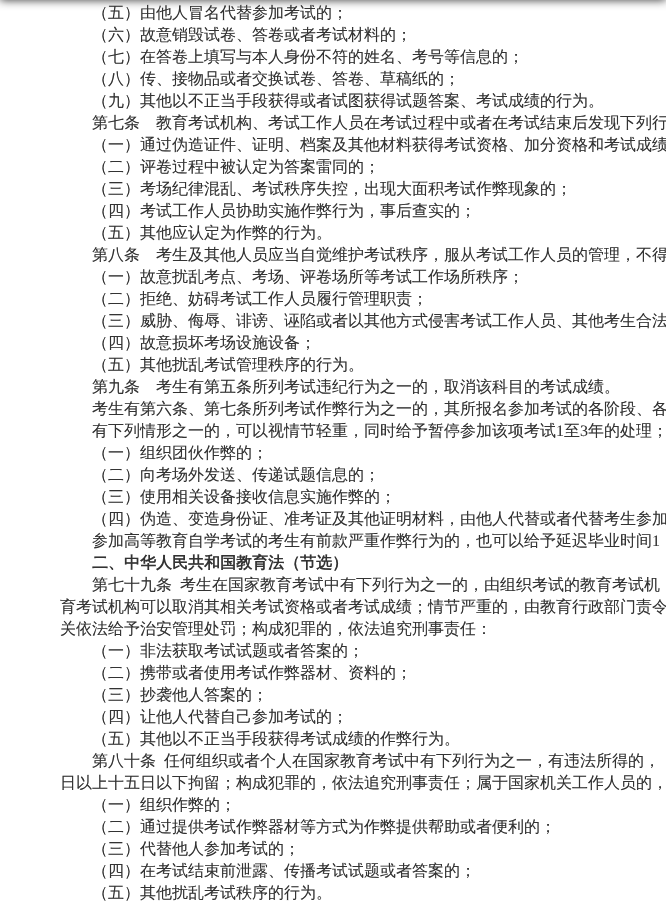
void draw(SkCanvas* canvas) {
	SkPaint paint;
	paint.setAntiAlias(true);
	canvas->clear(0xffffffff);
	paint.setColor(0xcc000000);
	paint.setMaskFilter(SkMaskFilter::MakeBlur(kNormal_SkBlurStyle, 5));
	canvas->drawRect(SkRect::MakeXYWH(0, -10, 666, 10), paint);
	paint.setMaskFilter(nullptr);
	SkFont f1(fontMgr->matchFamilyStyle("WenQuanYi Zen Hei", SkFontStyle(500, SkFontStyle::kNormal_Width, SkFontStyle::kUpright_Slant)), 16);
	f1.setSubpixel(true);
	paint.setColor(0xff333333);
	canvas->drawString("（五）由他人冒名代替参加考试的；", 92, 18, f1, paint);
	canvas->drawString("（六）故意销毁试卷、答卷或者考试材料的；", 92, 40, f1, paint);
	canvas->drawString("（七）在答卷上填写与本人身份不符的姓名、考号等信息的；", 92, 62, f1, paint);
	canvas->drawString("（八）传、接物品或者交换试卷、答卷、草稿纸的；", 92, 84, f1, paint);
	canvas->drawString("（九）其他以不正当手段获得或者试图获得试题答案、考试成绩的行为。", 92, 106, f1, paint);
	canvas->drawString("第七条　教育考试机构、考试工作人员在考试过程中或者在考试结束后发现下列行", 92, 128, f1, paint);
	canvas->drawString("（一）通过伪造证件、证明、档案及其他材料获得考试资格、加分资格和考试成绩", 92, 150, f1, paint);
	canvas->drawString("（二）评卷过程中被认定为答案雷同的；", 92, 172, f1, paint);
	canvas->drawString("（三）考场纪律混乱、考试秩序失控，出现大面积考试作弊现象的；", 92, 194, f1, paint);
	canvas->drawString("（四）考试工作人员协助实施作弊行为，事后查实的；", 92, 216, f1, paint);
	canvas->drawString("（五）其他应认定为作弊的行为。", 92, 238, f1, paint);
	canvas->drawString("第八条　考生及其他人员应当自觉维护考试秩序，服从考试工作人员的管理，不得", 92, 260, f1, paint);
	canvas->drawString("（一）故意扰乱考点、考场、评卷场所等考试工作场所秩序；", 92, 282, f1, paint);
	canvas->drawString("（二）拒绝、妨碍考试工作人员履行管理职责；", 92, 304, f1, paint);
	canvas->drawString("（三）威胁、侮辱、诽谤、诬陷或者以其他方式侵害考试工作人员、其他考生合法", 92, 326, f1, paint);
	canvas->drawString("（四）故意损坏考场设施设备；", 92, 348, f1, paint);
	canvas->drawString("（五）其他扰乱考试管理秩序的行为。", 92, 370, f1, paint);
	canvas->drawString("第九条　考生有第五条所列考试违纪行为之一的，取消该科目的考试成绩。", 92, 392, f1, paint);
	canvas->drawString("考生有第六条、第七条所列考试作弊行为之一的，其所报名参加考试的各阶段、各", 92, 414, f1, paint);
	canvas->drawString("有下列情形之一的，可以视情节轻重，同时给予暂停参加该项考试", 92, 436, f1, paint);
	SkFont f2(fontMgr->matchFamilyStyle("Liberation Serif", SkFontStyle::Normal()), 16);
	f2.setSubpixel(true);
	canvas->drawString("1", 556, 436, f2, paint);
	canvas->drawString("至", 564, 436, f1, paint);
	canvas->drawString("3", 580, 436, f2, paint);
	canvas->drawString("年的处理；", 588, 436, f1, paint);
	canvas->drawString("（一）组织团伙作弊的；", 92, 458, f1, paint);
	canvas->drawString("（二）向考场外发送、传递试题信息的；", 92, 480, f1, paint);
	canvas->drawString("（三）使用相关设备接收信息实施作弊的；", 92, 502, f1, paint);
	canvas->drawString("（四）伪造、变造身份证、准考证及其他证明材料，由他人代替或者代替考生参加", 92, 524, f1, paint);
	canvas->drawString("参加高等教育自学考试的考生有前款严重作弊行为的，也可以给予延迟毕业时间", 92, 546, f1, paint);
	canvas->drawString("1", 652, 546, f2, paint);
	SkFont f3(fontMgr->matchFamilyStyle("WenQuanYi Zen Hei", SkFontStyle::Bold()), 16);
	f3.setSubpixel(true);
	canvas->drawString("二、中华人民共和国教育法（节选）", 92, 568, f3, paint);
	canvas->drawString("第七十九条", 92, 590, f1, paint);
	canvas->drawString("考生在国家教育考试中有下列行为之一的，由组织考试的教育考试机", 180, 590, f1, paint);
	canvas->drawString("育考试机构可以取消其相关考试资格或者考试成绩；情节严重的，由教育行政部门责令", 60, 612, f1, paint);
	canvas->drawString("关依法给予治安管理处罚；构成犯罪的，依法追究刑事责任：", 60, 634, f1, paint);
	canvas->drawString("（一）非法获取考试试题或者答案的；", 92, 656, f1, paint);
	canvas->drawString("（二）携带或者使用考试作弊器材、资料的；", 92, 678, f1, paint);
	canvas->drawString("（三）抄袭他人答案的；", 92, 700, f1, paint);
	canvas->drawString("（四）让他人代替自己参加考试的；", 92, 722, f1, paint);
	canvas->drawString("（五）其他以不正当手段获得考试成绩的作弊行为。", 92, 744, f1, paint);
	canvas->drawString("第八十条", 92, 766, f1, paint);
	canvas->drawString("任何组织或者个人在国家教育考试中有下列行为之一，有违法所得的，", 164, 766, f1, paint);
	canvas->drawString("日以上十五日以下拘留；构成犯罪的，依法追究刑事责任；属于国家机关工作人员的，", 60, 788, f1, paint);
	canvas->drawString("（一）组织作弊的；", 92, 810, f1, paint);
	canvas->drawString("（二）通过提供考试作弊器材等方式为作弊提供帮助或者便利的；", 92, 832, f1, paint);
	canvas->drawString("（三）代替他人参加考试的；", 92, 854, f1, paint);
	canvas->drawString("（四）在考试结束前泄露、传播考试试题或者答案的；", 92, 876, f1, paint);
	canvas->drawString("（五）其他扰乱考试秩序的行为。", 92, 898, f1, paint);
}
